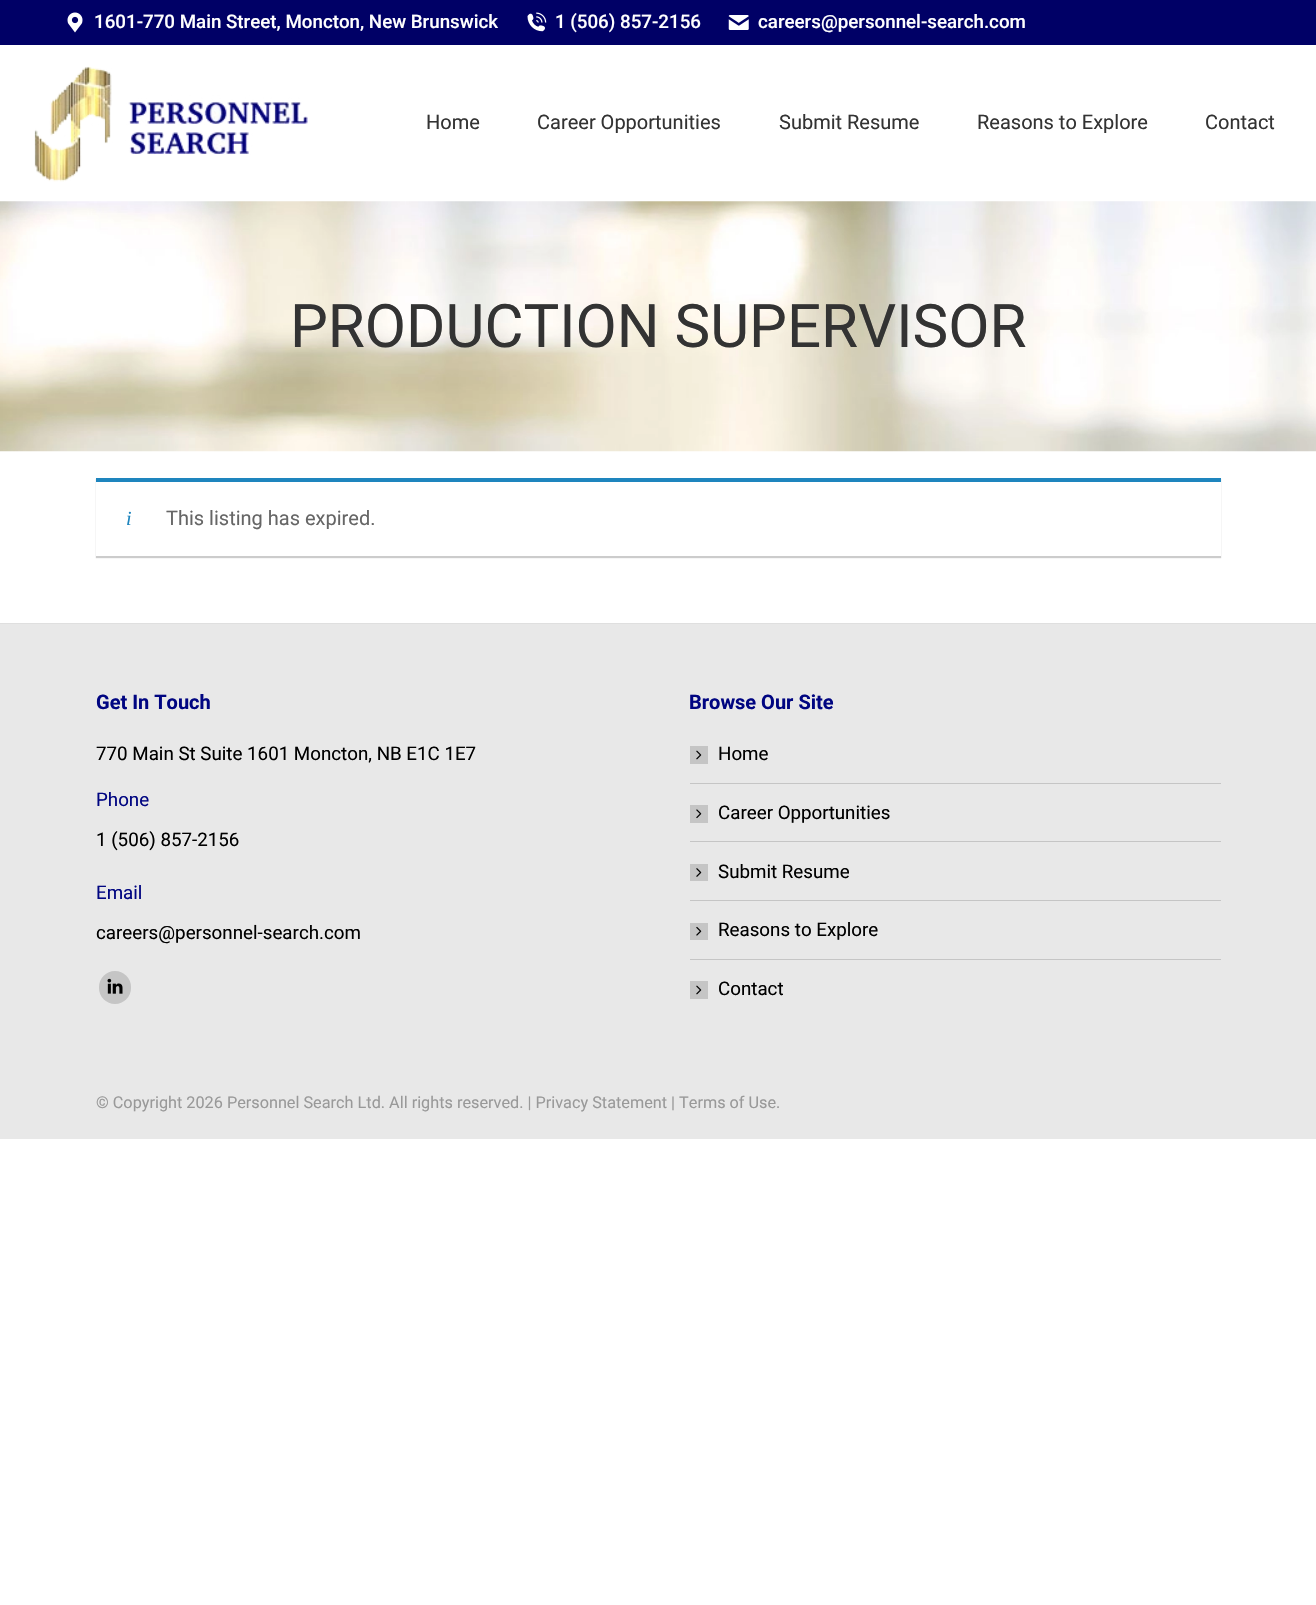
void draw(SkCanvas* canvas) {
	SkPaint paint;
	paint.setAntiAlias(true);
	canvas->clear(0xffffffff);
	paint.setColor(0xff000066);
	canvas->drawRect(SkRect::MakeXYWH(0, 0, 1316, 45), paint);
	canvas->drawImageRect(SkImages::DeferredFromEncodedData(SkData::MakeFromFileName("img1.png")), SkRect::MakeXYWH(67, 12, 16, 21), SkSamplingOptions());
	SkFont f1(fontMgr->matchFamilyStyle("Roboto", SkFontStyle(500, SkFontStyle::kNormal_Width, SkFontStyle::kUpright_Slant)), 18.75);
	f1.setSubpixel(true);
	paint.setColor(0xffffffff);
	canvas->drawString("1601-770 Main Street, Moncton, New Brunswick", 94, 28, f1, paint);
	canvas->drawImageRect(SkImages::DeferredFromEncodedData(SkData::MakeFromFileName("img2.png")), SkRect::MakeXYWH(527, 12, 20, 20), SkSamplingOptions());
	canvas->drawString("1 (506) 857-2156", 555, 28, f1, paint);
	canvas->drawImageRect(SkImages::DeferredFromEncodedData(SkData::MakeFromFileName("img3.png")), SkRect::MakeXYWH(728, 15, 21, 15), SkSamplingOptions());
	canvas->drawString("careers@personnel-search.com", 758, 28, f1, paint);
	canvas->drawImageRect(SkImages::DeferredFromEncodedData(SkData::MakeFromFileName("img4.png")), SkRect::MakeXYWH(34, 66, 274, 116), SkSamplingOptions());
	SkFont f2(fontMgr->matchFamilyStyle("Roboto", SkFontStyle::Normal()), 20);
	f2.setSubpixel(true);
	paint.setColor(0xff333333);
	canvas->drawString("Home", 426, 129, f2, paint);
	canvas->drawString("Career Opportunities", 537, 129, f2, paint);
	canvas->drawString("Submit Resume", 779, 129, f2, paint);
	canvas->drawString("Reasons to Explore", 977, 129, f2, paint);
	canvas->drawString("Contact", 1205, 129, f2, paint);
	canvas->drawImageRect(SkImages::DeferredFromEncodedData(SkData::MakeFromFileName("img5.png")), SkRect::MakeXYWH(0, 201, 1316, 251), SkSamplingOptions());
	SkFont f3(fontMgr->matchFamilyStyle("Roboto", SkFontStyle::Normal()), 60);
	f3.setSubpixel(true);
	canvas->drawString("PRODUCTION SUPERVISOR", 290, 347, f3, paint);
	paint.setColor(0x33000000);
	paint.setMaskFilter(SkMaskFilter::MakeBlur(kNormal_SkBlurStyle, 0.5));
	canvas->drawRect(SkRect::MakeXYWH(96, 479, 1125, 79), paint);
	paint.setMaskFilter(nullptr);
	paint.setColor(0xffffffff);
	canvas->drawRect(SkRect::MakeXYWH(96, 482, 1125, 74), paint);
	paint.setColor(0xff1e85be);
	canvas->drawRect(SkRect::MakeXYWH(96, 478, 1125, 4), paint);
	SkFont f4(fontMgr->matchFamilyStyle("Liberation Serif", SkFontStyle::Italic()), 20);
	f4.setSubpixel(true);
	canvas->drawString("i", 126, 525, f4, paint);
	paint.setColor(0xff666666);
	canvas->drawString("This listing has expired.", 166, 525, f2, paint);
	paint.setColor(0xffe8e8e8);
	canvas->drawRect(SkRect::MakeXYWH(0, 624, 1316, 515), paint);
	paint.setColor(0xffdfdfdf);
	canvas->drawRect(SkRect::MakeXYWH(0, 623, 1316, 1), paint);
	SkFont f5(fontMgr->matchFamilyStyle("Roboto", SkFontStyle::Bold()), 20);
	f5.setSubpixel(true);
	paint.setColor(0xff000581);
	canvas->drawString("Get In Touch", 96, 709, f5, paint);
	SkFont f6(fontMgr->matchFamilyStyle("Roboto", SkFontStyle::Normal()), 18.75);
	f6.setSubpixel(true);
	paint.setColor(0xff000000);
	canvas->drawString("770 Main St Suite 1601 Moncton, NB E1C 1E7", 96, 760, f6, paint);
	paint.setColor(0xff000581);
	canvas->drawString("Phone", 96, 806, f6, paint);
	paint.setColor(0xff000000);
	canvas->drawString("1 (506) 857-2156", 96, 846, f6, paint);
	paint.setColor(0xff000581);
	canvas->drawString("Email", 96, 899, f6, paint);
	paint.setColor(0xff000000);
	canvas->drawString("careers@personnel-search.com", 96, 939, f6, paint);
	paint.setColor(0xffc5c5c5);
	canvas->drawRoundRect(SkRect::MakeXYWH(99, 971, 32, 33), 16, 16, paint);
	canvas->drawImageRect(SkImages::DeferredFromEncodedData(SkData::MakeFromFileName("img6.png")), SkRect::MakeXYWH(107, 978, 16, 16), SkSamplingOptions());
	paint.setColor(0xff000581);
	canvas->drawString("Browse Our Site", 689, 709, f5, paint);
	paint.setColor(0xffc5c5c5);
	canvas->drawRect(SkRect::MakeXYWH(690, 746, 18, 18), paint);
	paint.setColor(0xff000000);
	canvas->drawString("Home", 718, 760, f6, paint);
	canvas->drawImageRect(SkImages::DeferredFromEncodedData(SkData::MakeFromFileName("img7.png")), SkRect::MakeXYWH(696, 750, 6, 10), SkSamplingOptions());
	paint.setColor(0xffc5c5c5);
	canvas->drawRect(SkRect::MakeXYWH(690, 783, 531, 1), paint);
	canvas->drawRect(SkRect::MakeXYWH(690, 805, 18, 18), paint);
	paint.setColor(0xff000000);
	canvas->drawString("Career Opportunities", 718, 819, f6, paint);
	canvas->drawImageRect(SkImages::DeferredFromEncodedData(SkData::MakeFromFileName("img8.png")), SkRect::MakeXYWH(696, 809, 6, 10), SkSamplingOptions());
	paint.setColor(0xffc5c5c5);
	canvas->drawRect(SkRect::MakeXYWH(690, 841, 531, 1), paint);
	canvas->drawRect(SkRect::MakeXYWH(690, 864, 18, 17), paint);
	paint.setColor(0xff000000);
	canvas->drawString("Submit Resume", 718, 878, f6, paint);
	canvas->drawImageRect(SkImages::DeferredFromEncodedData(SkData::MakeFromFileName("img9.png")), SkRect::MakeXYWH(696, 868, 6, 9), SkSamplingOptions());
	paint.setColor(0xffc5c5c5);
	canvas->drawRect(SkRect::MakeXYWH(690, 900, 531, 1), paint);
	canvas->drawRect(SkRect::MakeXYWH(690, 923, 18, 17), paint);
	paint.setColor(0xff000000);
	canvas->drawString("Reasons to Explore", 718, 936, f6, paint);
	canvas->drawImageRect(SkImages::DeferredFromEncodedData(SkData::MakeFromFileName("img10.png")), SkRect::MakeXYWH(696, 926, 6, 10), SkSamplingOptions());
	paint.setColor(0xffc5c5c5);
	canvas->drawRect(SkRect::MakeXYWH(690, 959, 531, 1), paint);
	canvas->drawRect(SkRect::MakeXYWH(690, 981, 18, 18), paint);
	paint.setColor(0xff000000);
	canvas->drawString("Contact", 718, 995, f6, paint);
	canvas->drawImageRect(SkImages::DeferredFromEncodedData(SkData::MakeFromFileName("img7.png")), SkRect::MakeXYWH(696, 985, 6, 10), SkSamplingOptions());
	SkFont f7(fontMgr->matchFamilyStyle("Roboto", SkFontStyle::Normal()), 16.25);
	f7.setSubpixel(true);
	paint.setColor(0xff999999);
	canvas->drawString("© Copyright 2026 Personnel Search Ltd. All rights reserved. | Privacy Statement | Terms of Use.", 96, 1108, f7, paint);
}
